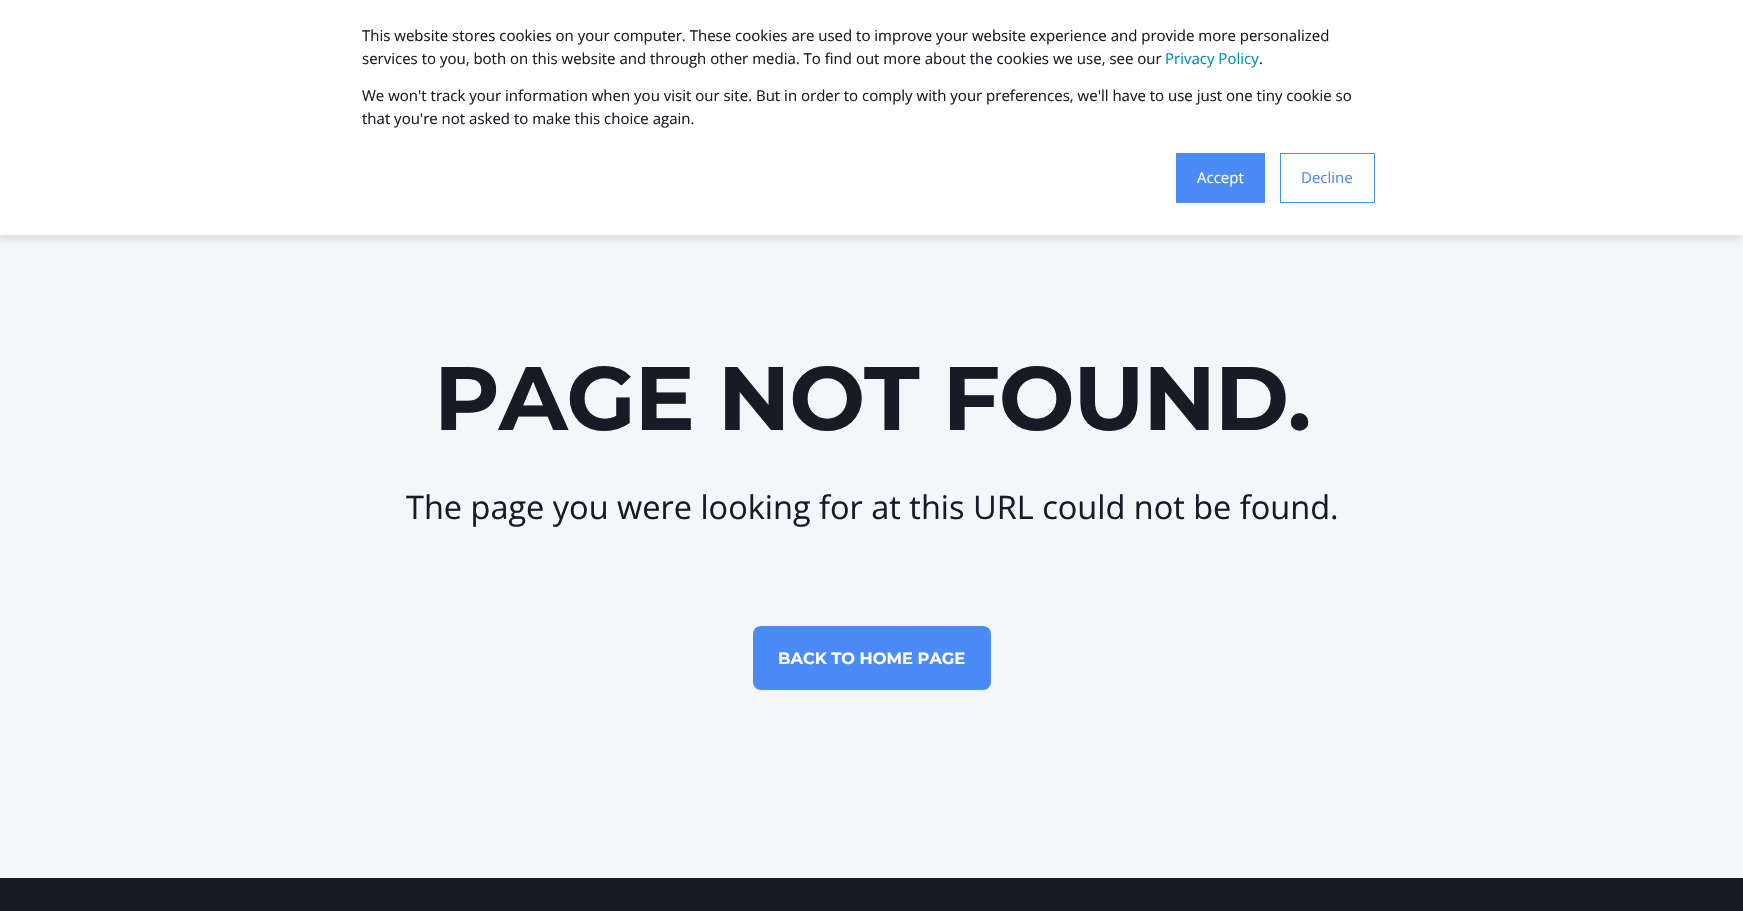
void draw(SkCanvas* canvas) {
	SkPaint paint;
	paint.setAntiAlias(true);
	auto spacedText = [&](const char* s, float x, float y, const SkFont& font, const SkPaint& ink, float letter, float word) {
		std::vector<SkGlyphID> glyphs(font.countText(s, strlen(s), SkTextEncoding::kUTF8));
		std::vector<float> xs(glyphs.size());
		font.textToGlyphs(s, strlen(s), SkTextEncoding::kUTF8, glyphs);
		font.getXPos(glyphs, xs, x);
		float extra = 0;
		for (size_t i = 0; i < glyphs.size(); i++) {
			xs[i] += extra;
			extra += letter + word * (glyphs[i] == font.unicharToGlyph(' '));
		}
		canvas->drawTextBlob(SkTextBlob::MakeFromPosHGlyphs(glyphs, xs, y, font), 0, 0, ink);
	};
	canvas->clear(0xfff4f6fa);
	paint.setColor(0x1a000000);
	paint.setMaskFilter(SkMaskFilter::MakeBlur(kNormal_SkBlurStyle, 3));
	canvas->drawRect(SkRect::MakeXYWH(-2, 4, 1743, 235), paint);
	paint.setMaskFilter(nullptr);
	paint.setColor(0xffffffff);
	canvas->drawRect(SkRect::MakeXYWH(0, 0, 1743, 235), paint);
	SkFont f1(fontMgr->matchFamilyStyle("Open Sans", SkFontStyle::Normal()), 15);
	f1.setSubpixel(true);
	paint.setColor(0xff171b25);
	canvas->drawString("This website stores cookies on your computer. These cookies are used to improve your website experience and provide more personalized", 362, 41, f1, paint);
	canvas->drawString("services to you, both on this website and through other media. To find out more about the cookies we use, see our", 362, 64, f1, paint);
	paint.setColor(0xff0091ae);
	canvas->drawString("Privacy Policy", 1165, 64, f1, paint);
	paint.setColor(0xff171b25);
	canvas->drawString(".", 1259, 64, f1, paint);
	canvas->drawString("We won't track your information when you visit our site. But in order to comply with your preferences, we'll have to use just one tiny cookie so", 362, 101, f1, paint);
	canvas->drawString("that you're not asked to make this choice again.", 362, 124, f1, paint);
	paint.setColor(0xff4b8bf7);
	canvas->drawRect(SkRect::MakeXYWH(1176, 153, 89, 50), paint);
	paint.setColor(0xffffffff);
	canvas->drawString("Accept", 1197, 183, f1, paint);
	paint.setStroke(true);
	paint.setStrokeWidth(1);
	paint.setColor(0xff4b8bf7);
	canvas->drawRect(SkRect::MakeXYWH(1280.5, 153.5, 94, 49), paint);
	paint.setStroke(false);
	canvas->drawString("Decline", 1301, 183, f1, paint);
	SkFont f2(fontMgr->matchFamilyStyle("Montserrat", SkFontStyle::Bold()), 90);
	f2.setSubpixel(true);
	paint.setColor(0xff171b25);
	spacedText("PAGE NOT FOUND.", 434, 430, f2, paint, -1.25, 0);
	SkFont f3(fontMgr->matchFamilyStyle("Open Sans", SkFontStyle::Normal()), 32.5);
	f3.setSubpixel(true);
	canvas->drawString("The page you were looking for at this URL could not be found.", 406, 519, f3, paint);
	paint.setColor(0xff4b8bf7);
	canvas->drawRoundRect(SkRect::MakeXYWH(753, 626, 238, 64), 8, 8, paint);
	SkFont f4(fontMgr->matchFamilyStyle("Montserrat", SkFontStyle::Bold()), 16.25);
	f4.setSubpixel(true);
	paint.setColor(0xffffffff);
	canvas->drawString("BACK TO HOME PAGE", 778, 664, f4, paint);
	paint.setColor(0xff171b25);
	canvas->drawRect(SkRect::MakeXYWH(0, 878, 1743, 33), paint);
}
